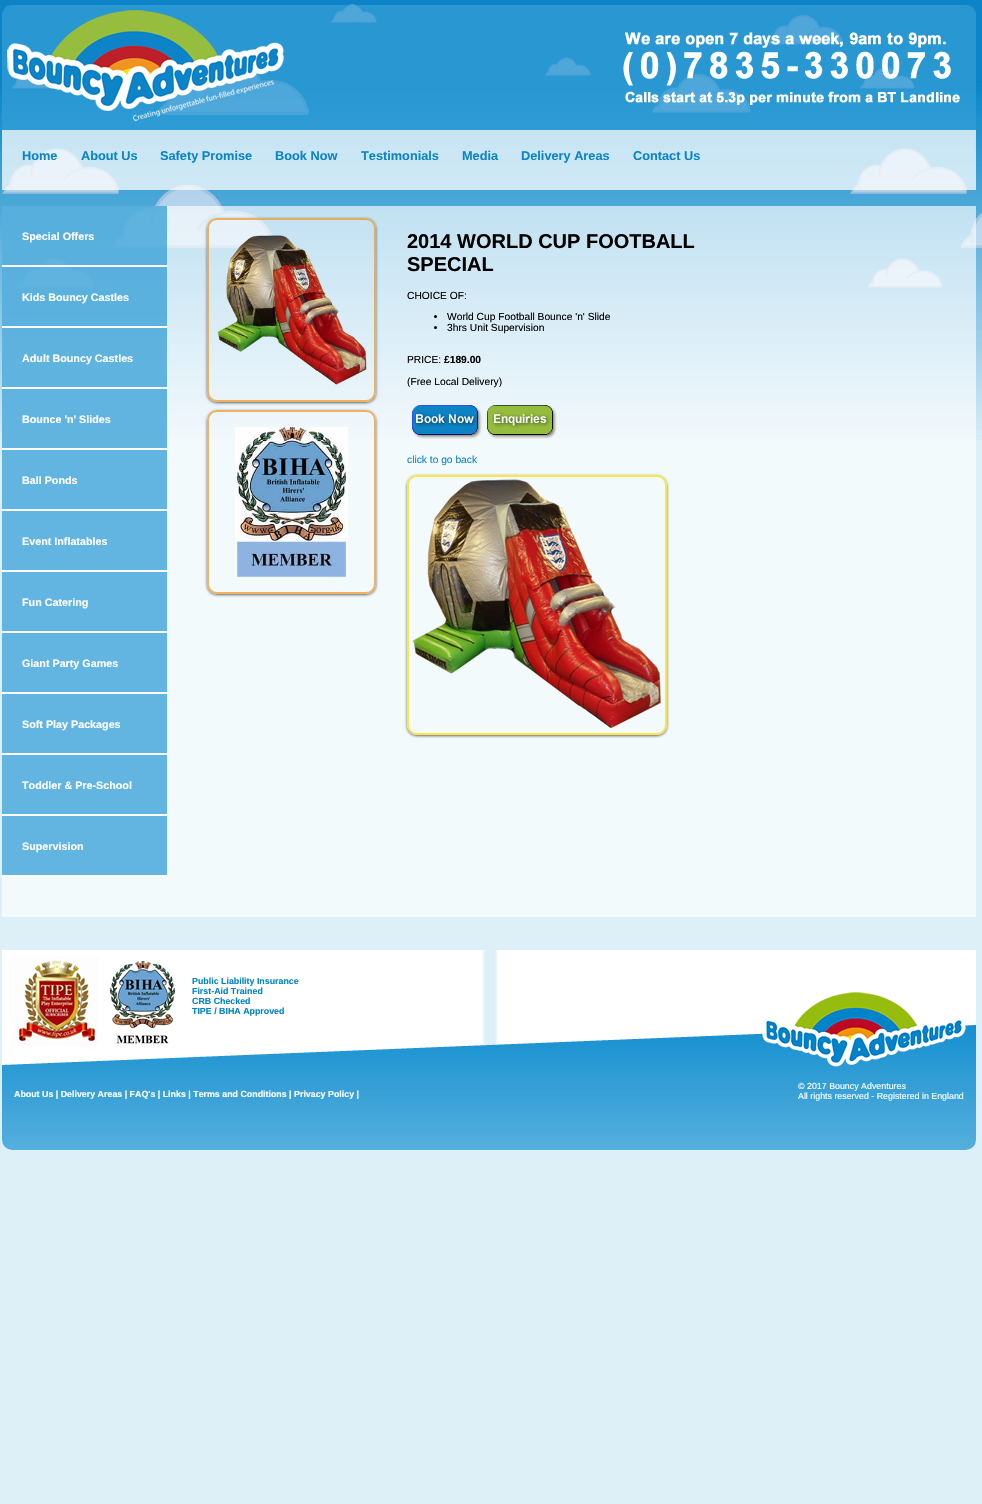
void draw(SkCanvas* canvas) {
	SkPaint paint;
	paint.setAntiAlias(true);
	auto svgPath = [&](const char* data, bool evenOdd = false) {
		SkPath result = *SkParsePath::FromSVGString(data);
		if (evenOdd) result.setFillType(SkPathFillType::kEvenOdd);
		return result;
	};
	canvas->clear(0xffddf0f7);
	canvas->drawImageRect(SkImages::DeferredFromEncodedData(SkData::MakeFromFileName("img1.png")), SkRect::MakeXYWH(0, 0, 982, 440), SkSamplingOptions());
	paint.setColor(0xbf329ed6);
	canvas->drawPath(svgPath("M12 5H966C971.5 5 976 9.5 976 15V130H2V15C2 9.5 6.5 5 12 5Z"), paint);
	canvas->drawImageRect(SkImages::DeferredFromEncodedData(SkData::MakeFromFileName("img2.png")), SkRect::MakeXYWH(7, 10, 277, 111), SkSamplingOptions());
	canvas->drawImageRect(SkImages::DeferredFromEncodedData(SkData::MakeFromFileName("img3.png")), SkRect::MakeXYWH(623, 32, 337, 73), SkSamplingOptions());
	paint.setColor(0xbfffffff);
	canvas->drawRect(SkRect::MakeXYWH(2, 130, 974, 60), paint);
	SkFont f1(fontMgr->matchFamilyStyle("Liberation Sans", SkFontStyle::Bold()), 12.75);
	f1.setSubpixel(true);
	paint.setColor(0xff0c84c7);
	canvas->drawString("Home", 22, 160, f1, paint);
	canvas->drawString("About Us", 81, 160, f1, paint);
	canvas->drawString("Safety Promise", 160, 160, f1, paint);
	canvas->drawString("Book Now", 275, 160, f1, paint);
	canvas->drawString("Testimonials", 361, 160, f1, paint);
	canvas->drawString("Media", 462, 160, f1, paint);
	canvas->drawString("Delivery Areas", 521, 160, f1, paint);
	canvas->drawString("Contact Us", 633, 160, f1, paint);
	paint.setColor(0xa6ffffff);
	canvas->drawRect(SkRect::MakeXYWH(2, 206, 974, 711), paint);
	paint.setColor(0xbf329ed6);
	canvas->drawRect(SkRect::MakeXYWH(2, 206, 165, 59), paint);
	paint.setColor(0xffffffff);
	canvas->drawRect(SkRect::MakeXYWH(2, 265, 165, 2), paint);
	SkFont f2(fontMgr->matchFamilyStyle("Liberation Sans", SkFontStyle::Bold()), 10.75);
	f2.setSubpixel(true);
	canvas->drawString("Special Offers", 22, 240, f2, paint);
	paint.setColor(0xbf329ed6);
	canvas->drawRect(SkRect::MakeXYWH(2, 267, 165, 59), paint);
	paint.setColor(0xffffffff);
	canvas->drawRect(SkRect::MakeXYWH(2, 326, 165, 2), paint);
	canvas->drawString("Kids Bouncy Castles", 22, 301, f2, paint);
	paint.setColor(0xbf329ed6);
	canvas->drawRect(SkRect::MakeXYWH(2, 328, 165, 59), paint);
	paint.setColor(0xffffffff);
	canvas->drawRect(SkRect::MakeXYWH(2, 387, 165, 2), paint);
	canvas->drawString("Adult Bouncy Castles", 22, 362, f2, paint);
	paint.setColor(0xbf329ed6);
	canvas->drawRect(SkRect::MakeXYWH(2, 389, 165, 59), paint);
	paint.setColor(0xffffffff);
	canvas->drawRect(SkRect::MakeXYWH(2, 448, 165, 2), paint);
	canvas->drawString("Bounce 'n' Slides", 22, 423, f2, paint);
	paint.setColor(0xff62b5e0);
	canvas->drawRect(SkRect::MakeXYWH(2, 450, 165, 59), paint);
	paint.setColor(0xffffffff);
	canvas->drawRect(SkRect::MakeXYWH(2, 509, 165, 2), paint);
	canvas->drawString("Ball Ponds", 22, 484, f2, paint);
	paint.setColor(0xff62b5e0);
	canvas->drawRect(SkRect::MakeXYWH(2, 511, 165, 59), paint);
	paint.setColor(0xffffffff);
	canvas->drawRect(SkRect::MakeXYWH(2, 570, 165, 2), paint);
	canvas->drawString("Event Inflatables", 22, 545, f2, paint);
	paint.setColor(0xff62b5e0);
	canvas->drawRect(SkRect::MakeXYWH(2, 572, 165, 59), paint);
	paint.setColor(0xffffffff);
	canvas->drawRect(SkRect::MakeXYWH(2, 631, 165, 2), paint);
	canvas->drawString("Fun Catering", 22, 606, f2, paint);
	paint.setColor(0xff62b5e0);
	canvas->drawRect(SkRect::MakeXYWH(2, 633, 165, 59), paint);
	paint.setColor(0xffffffff);
	canvas->drawRect(SkRect::MakeXYWH(2, 692, 165, 2), paint);
	canvas->drawString("Giant Party Games", 22, 667, f2, paint);
	paint.setColor(0xff62b5e0);
	canvas->drawRect(SkRect::MakeXYWH(2, 694, 165, 59), paint);
	paint.setColor(0xffffffff);
	canvas->drawRect(SkRect::MakeXYWH(2, 753, 165, 2), paint);
	canvas->drawString("Soft Play Packages", 22, 728, f2, paint);
	paint.setColor(0xff62b5e0);
	canvas->drawRect(SkRect::MakeXYWH(2, 755, 165, 59), paint);
	paint.setColor(0xffffffff);
	canvas->drawRect(SkRect::MakeXYWH(2, 814, 165, 2), paint);
	canvas->drawString("Toddler & Pre-School", 22, 789, f2, paint);
	paint.setColor(0xff62b5e0);
	canvas->drawRect(SkRect::MakeXYWH(2, 816, 165, 59), paint);
	paint.setColor(0xffffffff);
	canvas->drawRect(SkRect::MakeXYWH(2, 875, 165, 2), paint);
	canvas->drawString("Supervision", 22, 850, f2, paint);
	canvas->save();
	canvas->clipPath(svgPath("M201 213H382V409H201ZM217 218H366C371.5 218 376 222.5 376 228V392C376 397.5 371.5 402 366 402H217C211.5 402 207 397.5 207 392V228C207 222.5 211.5 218 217 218Z", true), true);
	paint.setColor(0xbf323232);
	paint.setMaskFilter(SkMaskFilter::MakeBlur(kNormal_SkBlurStyle, 1.5));
	canvas->drawRoundRect(SkRect::MakeXYWH(207, 219, 169, 184), 10, 10, paint);
	paint.setMaskFilter(nullptr);
	canvas->restore();
	paint.setStroke(true);
	paint.setStrokeWidth(2);
	paint.setColor(0xb3f09421);
	canvas->drawRoundRect(SkRect::MakeXYWH(208, 219, 167, 182), 9, 9, paint);
	canvas->drawImageRect(SkImages::DeferredFromEncodedData(SkData::MakeFromFileName("img4.png")), SkRect::MakeXYWH(217, 235, 150, 150), SkSamplingOptions());
	canvas->save();
	canvas->clipPath(svgPath("M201 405H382V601H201ZM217 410H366C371.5 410 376 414.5 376 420V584C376 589.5 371.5 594 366 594H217C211.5 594 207 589.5 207 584V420C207 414.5 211.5 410 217 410Z", true), true);
	paint.setStroke(false);
	paint.setColor(0xbf323232);
	paint.setMaskFilter(SkMaskFilter::MakeBlur(kNormal_SkBlurStyle, 1.5));
	canvas->drawRoundRect(SkRect::MakeXYWH(207, 411, 169, 184), 10, 10, paint);
	paint.setMaskFilter(nullptr);
	canvas->restore();
	paint.setStroke(true);
	paint.setColor(0xb3f09421);
	canvas->drawRoundRect(SkRect::MakeXYWH(208, 411, 167, 182), 9, 9, paint);
	canvas->drawImageRect(SkImages::DeferredFromEncodedData(SkData::MakeFromFileName("img5.png")), SkRect::MakeXYWH(235, 427, 113, 150), SkSamplingOptions());
	SkFont f3(fontMgr->matchFamilyStyle("Liberation Sans", SkFontStyle::Bold()), 20);
	f3.setSubpixel(true);
	paint.setStroke(false);
	paint.setColor(0xff000000);
	canvas->drawString("2014 WORLD CUP FOOTBALL", 407, 248, f3, paint);
	canvas->drawString("SPECIAL", 407, 271, f3, paint);
	SkFont f4(fontMgr->matchFamilyStyle("Liberation Sans", SkFontStyle::Normal()), 10.25);
	f4.setSubpixel(true);
	canvas->drawString("CHOICE OF:", 407, 299, f4, paint);
	canvas->drawCircle(435.5, 316.5, 1.5, paint);
	canvas->drawString("World Cup Football Bounce 'n' Slide", 447, 320, f4, paint);
	canvas->drawCircle(435.5, 327.5, 1.5, paint);
	canvas->drawString("3hrs Unit Supervision", 447, 331, f4, paint);
	canvas->drawString("PRICE:", 407, 363, f4, paint);
	SkFont f5(fontMgr->matchFamilyStyle("Liberation Sans", SkFontStyle::Bold()), 10.25);
	f5.setSubpixel(true);
	canvas->drawString("£189.00", 444, 363, f5, paint);
	canvas->drawString("(Free Local Delivery)", 407, 385, f4, paint);
	canvas->drawImageRect(SkImages::DeferredFromEncodedData(SkData::MakeFromFileName("img6.png")), SkRect::MakeXYWH(412, 405, 70, 34), SkSamplingOptions());
	canvas->drawImageRect(SkImages::DeferredFromEncodedData(SkData::MakeFromFileName("img7.png")), SkRect::MakeXYWH(487, 405, 70, 34), SkSamplingOptions());
	paint.setColor(0xff0c84c7);
	canvas->drawString("click to go back", 407, 463, f4, paint);
	canvas->save();
	canvas->clipPath(svgPath("M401 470H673V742H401ZM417 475H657C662.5 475 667 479.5 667 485V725C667 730.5 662.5 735 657 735H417C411.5 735 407 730.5 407 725V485C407 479.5 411.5 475 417 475Z", true), true);
	paint.setColor(0xbf323232);
	paint.setMaskFilter(SkMaskFilter::MakeBlur(kNormal_SkBlurStyle, 1.5));
	canvas->drawRoundRect(SkRect::MakeXYWH(407, 476, 260, 260), 10, 10, paint);
	paint.setMaskFilter(nullptr);
	canvas->restore();
	paint.setStroke(true);
	paint.setColor(0xb3fedc00);
	canvas->drawRoundRect(SkRect::MakeXYWH(408, 476, 258, 258), 9, 9, paint);
	canvas->drawImageRect(SkImages::DeferredFromEncodedData(SkData::MakeFromFileName("img8.png")), SkRect::MakeXYWH(412, 479, 250, 249), SkSamplingOptions());
	paint.setStroke(false);
	paint.setColor(0xffffffff);
	canvas->drawPath(svgPath("M2 950H976V1140C976 1145.5 971.5 1150 966 1150H12C6.5 1150 2 1145.5 2 1140Z"), paint);
	canvas->drawImageRect(SkImages::DeferredFromEncodedData(SkData::MakeFromFileName("img9.png")), SkRect::MakeXYWH(2, 950, 974, 200), SkSamplingOptions());
	SkFont f6(fontMgr->matchFamilyStyle("Liberation Sans", SkFontStyle::Bold()), 8.85);
	f6.setSubpixel(true);
	paint.setColor(0xff0084c9);
	canvas->drawString("Public Liability Insurance", 192, 984, f6, paint);
	canvas->drawString("First-Aid Trained", 192, 994, f6, paint);
	canvas->drawString("CRB Checked", 192, 1004, f6, paint);
	canvas->drawString("TIPE / BIHA Approved", 192, 1014, f6, paint);
	paint.setColor(0xffffffff);
	canvas->drawString("About Us | Delivery Areas | FAQ's | Links | Terms and Conditions | Privacy Policy |", 14, 1097, f6, paint);
	SkFont f7(fontMgr->matchFamilyStyle("Liberation Sans", SkFontStyle::Normal()), 8.85);
	f7.setSubpixel(true);
	canvas->drawString("© 2017 Bouncy Adventures", 798, 1089, f7, paint);
	canvas->drawString("All rights reserved - Registered in England", 798, 1099, f7, paint);
}
